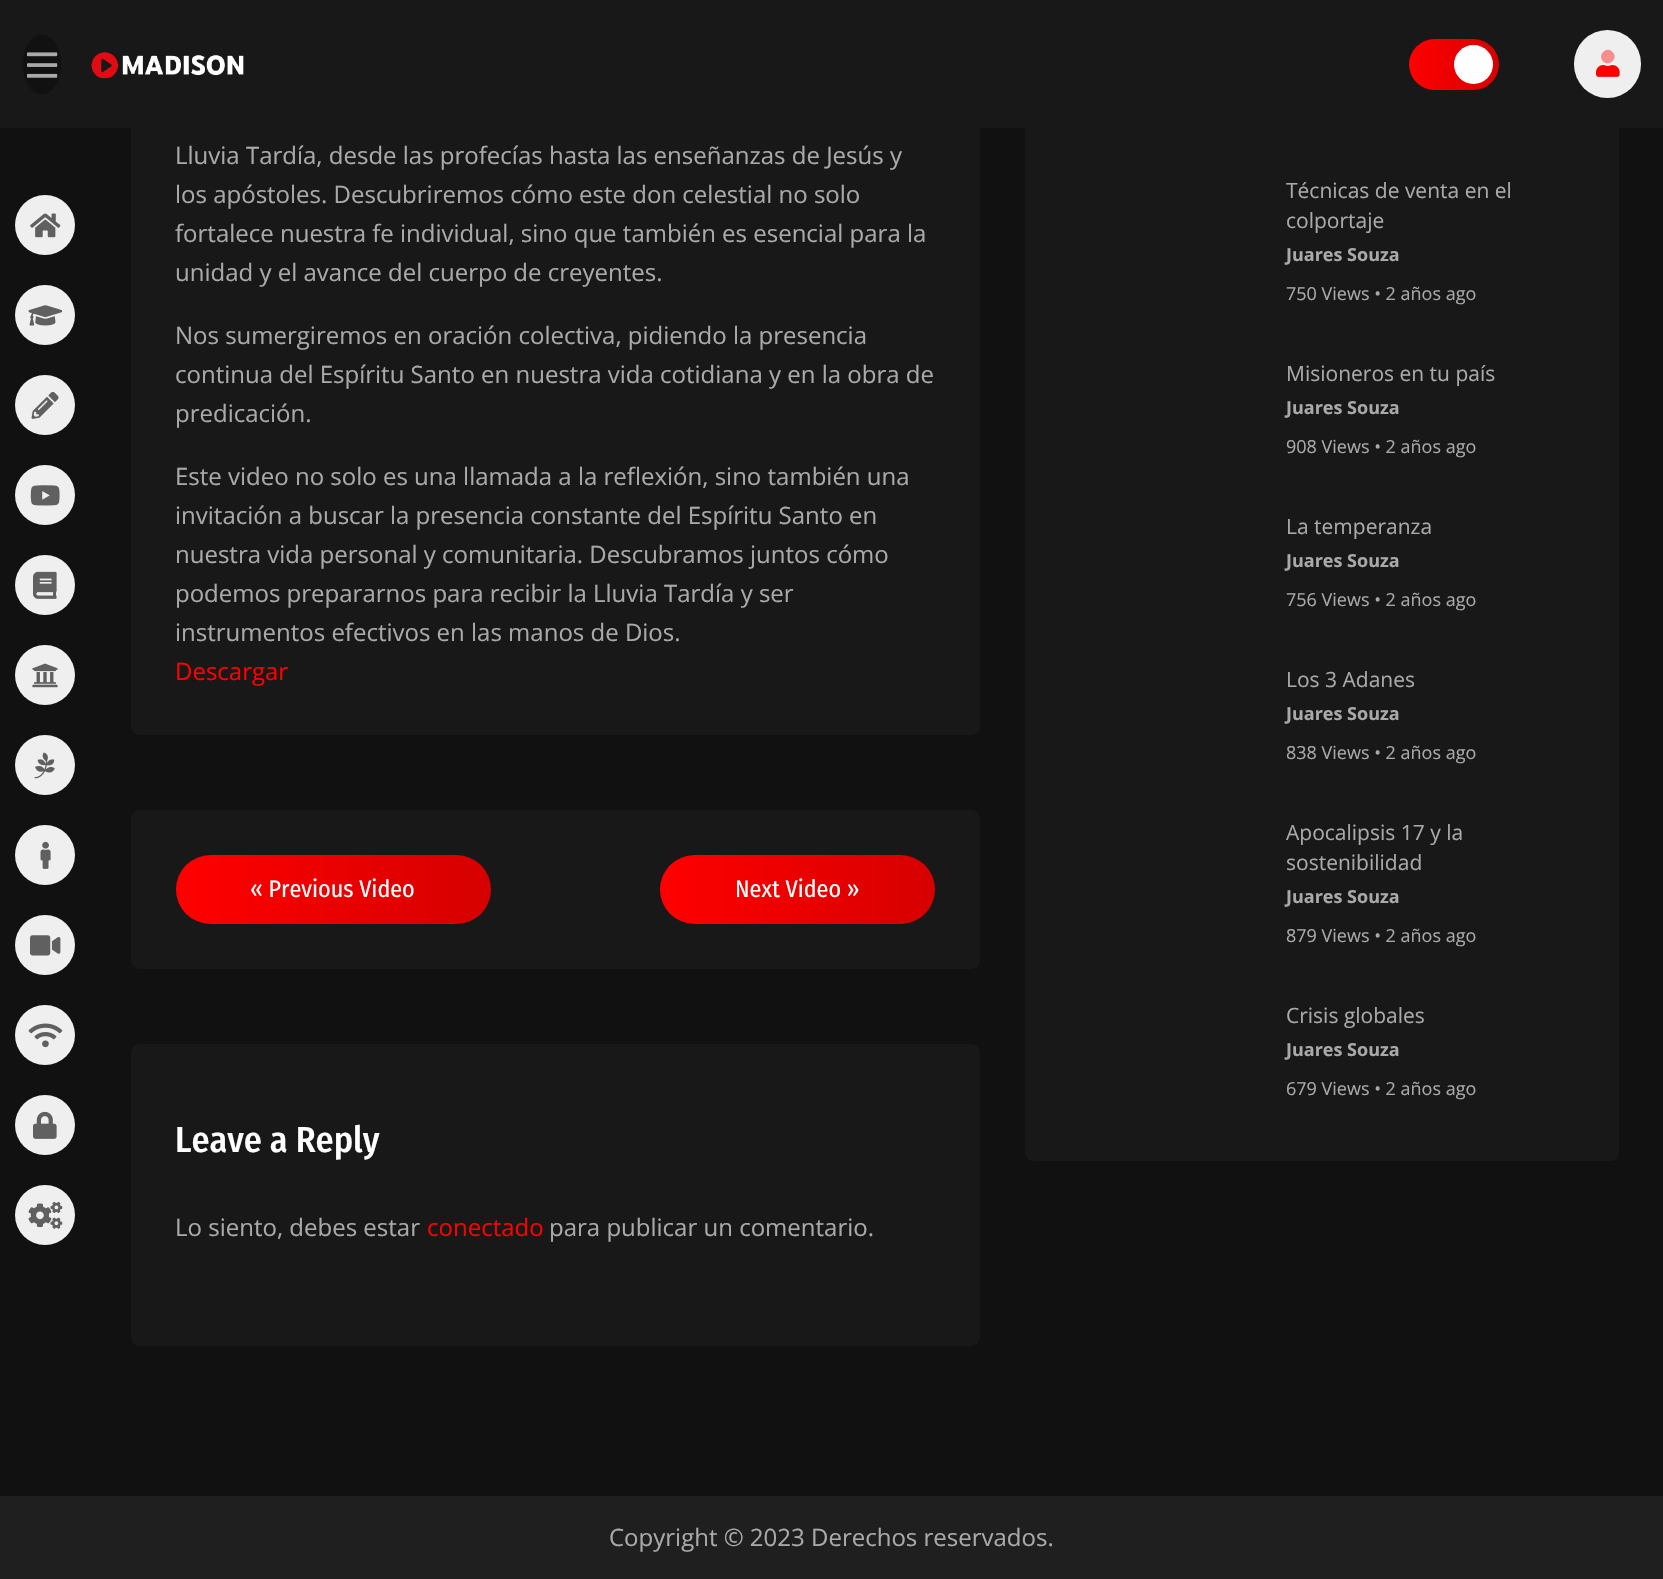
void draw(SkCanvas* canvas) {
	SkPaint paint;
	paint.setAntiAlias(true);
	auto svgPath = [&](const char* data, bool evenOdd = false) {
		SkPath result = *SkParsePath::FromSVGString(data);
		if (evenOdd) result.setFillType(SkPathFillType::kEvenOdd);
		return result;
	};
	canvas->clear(0xff111111);
	paint.setColor(0xff181818);
	canvas->drawRoundRect(SkRect::MakeXYWH(131, -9, 849, 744), 9, 9, paint);
	canvas->drawRoundRect(SkRect::MakeXYWH(1025, -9, 594, 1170), 9, 9, paint);
	canvas->drawRect(SkRect::MakeXYWH(0, 0, 1663, 128), paint);
	paint.setColor(0xff111111);
	canvas->drawOval(SkRect::MakeXYWH(22.5, 34.5, 39, 60), paint);
	canvas->drawImageRect(SkImages::DeferredFromEncodedData(SkData::MakeFromFileName("img1.png")), SkRect::MakeXYWH(27, 52, 31, 26), SkSamplingOptions());
	canvas->drawImageRect(SkImages::DeferredFromEncodedData(SkData::MakeFromFileName("img2.png")), SkRect::MakeXYWH(91, 52, 153, 27), SkSamplingOptions());
	{
		const SkColor colors[] = {0xffff0000, 0xffd60000};
		const float stops[] = {0, 1};
		const SkPoint ends[] = {{1409, 65}, {1499, 65}};
		paint.setShader(SkGradientShader::MakeLinear(ends, colors, stops, 2, SkTileMode::kClamp));
		paint.setAlpha(255);
	}
	canvas->drawRoundRect(SkRect::MakeXYWH(1409, 39, 90, 51), 25.5, 25.5, paint);
	paint.setShader(nullptr);
	paint.setColor(0xffffffff);
	canvas->drawCircle(1473.5, 64.5, 19.5, paint);
	paint.setColor(0xffefefef);
	canvas->drawRoundRect(SkRect::MakeXYWH(1574, 30, 67, 68), 33.5, 33.5, paint);
	paint.setColor(0xfff58f8f);
	canvas->drawPath(svgPath("M1612.5 52C1619 58 1609.5 67.5 1603 61.5C1597 55 1606.5 45.5 1612.5 52Z"), paint);
	canvas->drawImageRect(SkImages::DeferredFromEncodedData(SkData::MakeFromFileName("img3.png")), SkRect::MakeXYWH(1596, 65, 24, 12), SkSamplingOptions());
	paint.setColor(0xffefefef);
	canvas->drawCircle(45, 225, 30, paint);
	canvas->drawImageRect(SkImages::DeferredFromEncodedData(SkData::MakeFromFileName("img4.png")), SkRect::MakeXYWH(30, 213, 31, 25), SkSamplingOptions());
	canvas->drawCircle(45, 315, 30, paint);
	canvas->drawImageRect(SkImages::DeferredFromEncodedData(SkData::MakeFromFileName("img5.png")), SkRect::MakeXYWH(28, 305, 35, 21), SkSamplingOptions());
	canvas->drawCircle(45, 405, 30, paint);
	canvas->drawImageRect(SkImages::DeferredFromEncodedData(SkData::MakeFromFileName("img6.png")), SkRect::MakeXYWH(31, 391, 28, 28), SkSamplingOptions());
	canvas->drawCircle(45, 495, 30, paint);
	canvas->drawImageRect(SkImages::DeferredFromEncodedData(SkData::MakeFromFileName("img7.png")), SkRect::MakeXYWH(30, 485, 30, 21), SkSamplingOptions());
	canvas->drawCircle(45, 585, 30, paint);
	canvas->drawImageRect(SkImages::DeferredFromEncodedData(SkData::MakeFromFileName("img8.png")), SkRect::MakeXYWH(33, 571, 24, 28), SkSamplingOptions());
	canvas->drawCircle(45, 675, 30, paint);
	canvas->drawImageRect(SkImages::DeferredFromEncodedData(SkData::MakeFromFileName("img9.png")), SkRect::MakeXYWH(32, 663, 26, 25), SkSamplingOptions());
	canvas->drawCircle(45, 765, 30, paint);
	canvas->drawImageRect(SkImages::DeferredFromEncodedData(SkData::MakeFromFileName("img10.png")), SkRect::MakeXYWH(34, 752, 21, 27), SkSamplingOptions());
	canvas->drawCircle(45, 855, 30, paint);
	canvas->drawImageRect(SkImages::DeferredFromEncodedData(SkData::MakeFromFileName("img11.png")), SkRect::MakeXYWH(40, 841, 11, 28), SkSamplingOptions());
	canvas->drawCircle(45, 945, 30, paint);
	canvas->drawImageRect(SkImages::DeferredFromEncodedData(SkData::MakeFromFileName("img12.png")), SkRect::MakeXYWH(30, 935, 31, 21), SkSamplingOptions());
	canvas->drawCircle(45, 1035, 30, paint);
	canvas->drawImageRect(SkImages::DeferredFromEncodedData(SkData::MakeFromFileName("img13.png")), SkRect::MakeXYWH(28, 1023, 35, 25), SkSamplingOptions());
	canvas->drawCircle(45, 1125, 30, paint);
	canvas->drawImageRect(SkImages::DeferredFromEncodedData(SkData::MakeFromFileName("img14.png")), SkRect::MakeXYWH(33, 1111, 24, 28), SkSamplingOptions());
	canvas->drawCircle(45, 1215, 30, paint);
	canvas->drawImageRect(SkImages::DeferredFromEncodedData(SkData::MakeFromFileName("img15.png")), SkRect::MakeXYWH(28, 1201, 35, 28), SkSamplingOptions());
	SkFont f1(fontMgr->matchFamilyStyle("Open Sans", SkFontStyle::Normal()), 24);
	f1.setSubpixel(true);
	paint.setColor(0xffa9a9a9);
	canvas->drawString("Lluvia Tardía, desde las profecías hasta las enseñanzas de Jesús y", 175, 164, f1, paint);
	canvas->drawString("los apóstoles. Descubriremos cómo este don celestial no solo", 175, 203, f1, paint);
	canvas->drawString("fortalece nuestra fe individual, sino que también es esencial para la", 175, 242, f1, paint);
	canvas->drawString("unidad y el avance del cuerpo de creyentes.", 175, 281, f1, paint);
	canvas->drawString("Nos sumergiremos en oración colectiva, pidiendo la presencia", 175, 344, f1, paint);
	canvas->drawString("continua del Espíritu Santo en nuestra vida cotidiana y en la obra de", 175, 383, f1, paint);
	canvas->drawString("predicación.", 175, 422, f1, paint);
	canvas->drawString("Este video no solo es una llamada a la reflexión, sino también una", 175, 485, f1, paint);
	canvas->drawString("invitación a buscar la presencia constante del Espíritu Santo en", 175, 524, f1, paint);
	canvas->drawString("nuestra vida personal y comunitaria. Descubramos juntos cómo", 175, 563, f1, paint);
	canvas->drawString("podemos prepararnos para recibir la Lluvia Tardía y ser", 175, 602, f1, paint);
	canvas->drawString("instrumentos efectivos en las manos de Dios.", 175, 641, f1, paint);
	paint.setColor(0xffff0000);
	canvas->drawString("Descargar", 175, 680, f1, paint);
	paint.setColor(0xff181818);
	canvas->drawRoundRect(SkRect::MakeXYWH(131, 810, 849, 159), 9, 9, paint);
	{
		const SkColor colors[] = {0xffff0000, 0xffd60000};
		const float stops[] = {0, 1};
		const SkPoint ends[] = {{176, 890}, {491, 890}};
		paint.setShader(SkGradientShader::MakeLinear(ends, colors, stops, 2, SkTileMode::kClamp));
		paint.setAlpha(255);
	}
	canvas->drawRoundRect(SkRect::MakeXYWH(176, 855, 315, 69), 34.5, 34.5, paint);
	SkFont f2(fontMgr->matchFamilyStyle("Fira Sans Condensed", SkFontStyle::Normal()), 24);
	f2.setSubpixel(true);
	paint.setShader(nullptr);
	paint.setColor(0xffffffff);
	canvas->drawString("« Previous Video", 250, 897, f2, paint);
	{
		const SkColor colors[] = {0xffff0000, 0xffd60000};
		const float stops[] = {0, 1};
		const SkPoint ends[] = {{660, 890}, {935, 890}};
		paint.setShader(SkGradientShader::MakeLinear(ends, colors, stops, 2, SkTileMode::kClamp));
		paint.setAlpha(255);
	}
	canvas->drawRoundRect(SkRect::MakeXYWH(660, 855, 275, 69), 34.5, 34.5, paint);
	paint.setShader(nullptr);
	paint.setColor(0xffffffff);
	canvas->drawString("Next Video »", 735, 897, f2, paint);
	paint.setColor(0xff181818);
	canvas->drawRoundRect(SkRect::MakeXYWH(131, 1044, 849, 302), 9, 9, paint);
	SkFont f3(fontMgr->matchFamilyStyle("Fira Sans Condensed", SkFontStyle(500, SkFontStyle::kNormal_Width, SkFontStyle::kUpright_Slant)), 36);
	f3.setSubpixel(true);
	paint.setColor(0xffffffff);
	canvas->drawString("Leave a Reply", 175, 1152, f3, paint);
	paint.setColor(0xffa9a9a9);
	canvas->drawString("Lo siento, debes estar", 175, 1236, f1, paint);
	paint.setColor(0xffff0000);
	canvas->drawString("conectado", 427, 1236, f1, paint);
	paint.setColor(0xffa9a9a9);
	canvas->drawString("para publicar un comentario.", 549, 1236, f1, paint);
	SkFont f4(fontMgr->matchFamilyStyle("Open Sans", SkFontStyle::Normal()), 21);
	f4.setSubpixel(true);
	canvas->drawString("Técnicas de venta en el", 1286, 198, f4, paint);
	canvas->drawString("colportaje", 1286, 228, f4, paint);
	SkFont f5(fontMgr->matchFamilyStyle("Open Sans", SkFontStyle::Bold()), 18);
	f5.setSubpixel(true);
	canvas->drawString("Juares Souza", 1286, 261, f5, paint);
	SkFont f6(fontMgr->matchFamilyStyle("Open Sans", SkFontStyle::Normal()), 18);
	f6.setSubpixel(true);
	canvas->drawString("750 Views • 2 años ago", 1286, 300, f6, paint);
	canvas->drawString("Misioneros en tu país", 1286, 381, f4, paint);
	canvas->drawString("Juares Souza", 1286, 414, f5, paint);
	canvas->drawString("908 Views • 2 años ago", 1286, 453, f6, paint);
	canvas->drawString("La temperanza", 1286, 534, f4, paint);
	canvas->drawString("Juares Souza", 1286, 567, f5, paint);
	canvas->drawString("756 Views • 2 años ago", 1286, 606, f6, paint);
	canvas->drawString("Los 3 Adanes", 1286, 687, f4, paint);
	canvas->drawString("Juares Souza", 1286, 720, f5, paint);
	canvas->drawString("838 Views • 2 años ago", 1286, 759, f6, paint);
	canvas->drawString("Apocalipsis 17 y la", 1286, 840, f4, paint);
	canvas->drawString("sostenibilidad", 1286, 870, f4, paint);
	canvas->drawString("Juares Souza", 1286, 903, f5, paint);
	canvas->drawString("879 Views • 2 años ago", 1286, 942, f6, paint);
	canvas->drawString("Crisis globales", 1286, 1023, f4, paint);
	canvas->drawString("Juares Souza", 1286, 1056, f5, paint);
	canvas->drawString("679 Views • 2 años ago", 1286, 1095, f6, paint);
	paint.setColor(0xff1f1f1f);
	canvas->drawRect(SkRect::MakeXYWH(0, 1496, 1663, 83), paint);
	paint.setColor(0xffa9a9a9);
	canvas->drawString("Copyright © 2023 Derechos reservados.", 609, 1546, f1, paint);
}
